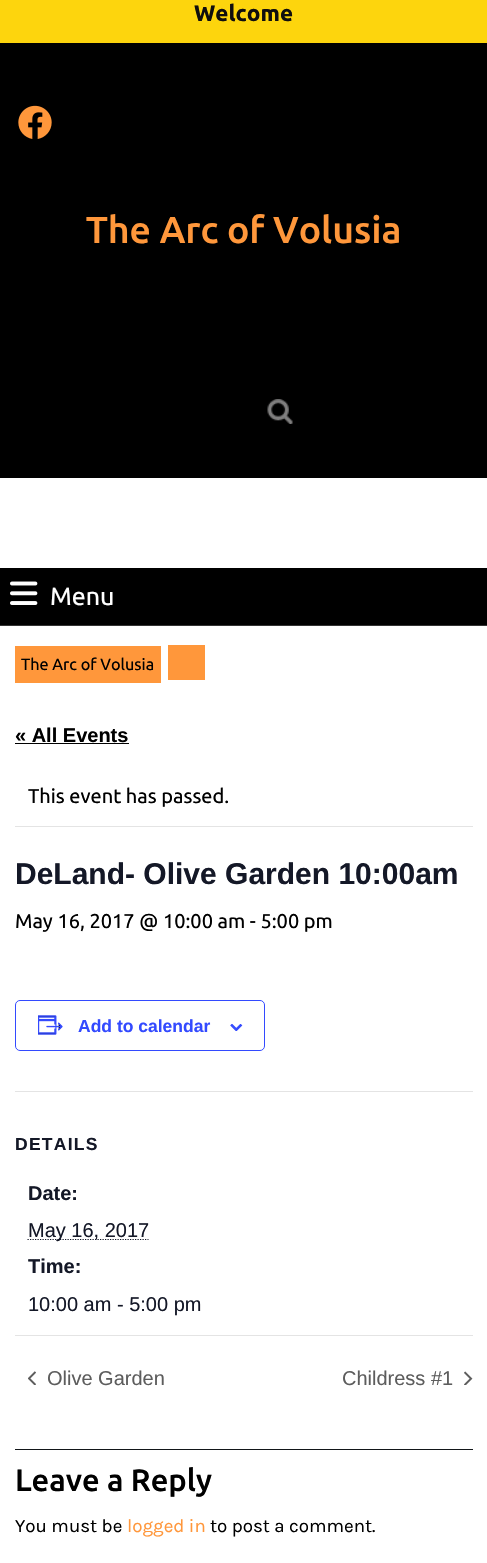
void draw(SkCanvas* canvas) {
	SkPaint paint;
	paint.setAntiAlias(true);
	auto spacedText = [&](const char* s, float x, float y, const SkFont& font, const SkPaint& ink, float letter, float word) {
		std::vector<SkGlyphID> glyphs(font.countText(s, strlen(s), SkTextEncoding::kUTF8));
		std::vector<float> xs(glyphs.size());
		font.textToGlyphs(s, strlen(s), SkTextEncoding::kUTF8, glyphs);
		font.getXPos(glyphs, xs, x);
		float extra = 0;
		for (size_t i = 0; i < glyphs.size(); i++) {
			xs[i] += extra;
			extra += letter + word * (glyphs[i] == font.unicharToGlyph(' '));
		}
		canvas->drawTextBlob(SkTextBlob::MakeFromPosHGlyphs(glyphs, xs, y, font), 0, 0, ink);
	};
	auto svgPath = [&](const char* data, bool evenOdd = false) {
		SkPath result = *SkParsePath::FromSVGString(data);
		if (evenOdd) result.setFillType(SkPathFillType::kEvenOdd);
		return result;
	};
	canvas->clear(0xffffffff);
	paint.setColor(0xfffdd50d);
	canvas->drawRect(SkRect::MakeXYWH(0, 0, 487, 43), paint);
	SkFont f1(fontMgr->matchFamilyStyle("Ubuntu", SkFontStyle::Bold()), 22.5);
	f1.setSubpixel(true);
	paint.setColor(0xff100e0e);
	canvas->drawString("Welcome", 194, 21, f1, paint);
	paint.setColor(0xff000000);
	canvas->drawRect(SkRect::MakeXYWH(0, 43, 487, 435), paint);
	canvas->drawImageRect(SkImages::DeferredFromEncodedData(SkData::MakeFromFileName("img1.png")), SkRect::MakeXYWH(18, 105, 34, 34), SkSamplingOptions());
	SkFont f2(fontMgr->matchFamilyStyle("Ubuntu", SkFontStyle(500, SkFontStyle::kNormal_Width, SkFontStyle::kUpright_Slant)), 37.5);
	f2.setSubpixel(true);
	paint.setColor(0xffff973b);
	canvas->drawString("The Arc of Volusia", 86, 243, f2, paint);
	canvas->drawImageRect(SkImages::DeferredFromEncodedData(SkData::MakeFromFileName("img2.png")), SkRect::MakeXYWH(267, 399, 26, 25), SkSamplingOptions());
	paint.setColor(0xff000000);
	canvas->drawRect(SkRect::MakeXYWH(0, 568, 487, 57), paint);
	paint.setColor(0xff333333);
	canvas->drawRect(SkRect::MakeXYWH(0, 625, 487, 1), paint);
	canvas->drawImageRect(SkImages::DeferredFromEncodedData(SkData::MakeFromFileName("img3.png")), SkRect::MakeXYWH(10, 581, 28, 24), SkSamplingOptions());
	SkFont f3(fontMgr->matchFamilyStyle("Ubuntu", SkFontStyle::Normal()), 25);
	f3.setSubpixel(true);
	paint.setColor(0xffffffff);
	canvas->drawString("Menu", 50, 605, f3, paint);
	paint.setColor(0xffff973b);
	canvas->drawRect(SkRect::MakeXYWH(15, 646, 146, 37), paint);
	SkFont f4(fontMgr->matchFamilyStyle("Ubuntu", SkFontStyle::Normal()), 16.25);
	f4.setSubpixel(true);
	paint.setColor(0xff000000);
	canvas->drawString("The Arc of Volusia", 21, 670, f4, paint);
	paint.setColor(0xffff973b);
	canvas->drawRect(SkRect::MakeXYWH(168, 645, 37, 35), paint);
	SkFont f5(fontMgr->matchFamilyStyle("Liberation Sans", SkFontStyle::Bold()), 20);
	f5.setSubpixel(true);
	paint.setColor(0xff000000);
	canvas->drawString("« All Events", 15, 742, f5, paint);
	canvas->drawRect(SkRect::MakeXYWH(15, 743, 114, 1), paint);
	paint.setColor(0xffe4e4e4);
	canvas->drawRect(SkRect::MakeXYWH(15, 826, 458, 1), paint);
	SkFont f6(fontMgr->matchFamilyStyle("Ubuntu", SkFontStyle::Normal()), 20);
	f6.setSubpixel(true);
	paint.setColor(0xff000000);
	canvas->drawString("This event has passed.", 28, 803, f6, paint);
	SkFont f7(fontMgr->matchFamilyStyle("Liberation Sans", SkFontStyle::Bold()), 30);
	f7.setSubpixel(true);
	paint.setColor(0xff141827);
	canvas->drawString("DeLand- Olive Garden 10:00am", 15, 884, f7, paint);
	paint.setColor(0xff000000);
	canvas->drawString("May 16, 2017 @ 10:00 am - 5:00 pm", 15, 928, f6, paint);
	paint.setStroke(true);
	paint.setStrokeWidth(1);
	paint.setColor(0xff334aff);
	canvas->drawRoundRect(SkRect::MakeXYWH(15.5, 1000.5, 249, 50), 4.5, 4.5, paint);
	canvas->drawImageRect(SkImages::DeferredFromEncodedData(SkData::MakeFromFileName("img4.png")), SkRect::MakeXYWH(38, 1015, 25, 20), SkSamplingOptions());
	SkFont f8(fontMgr->matchFamilyStyle("Liberation Sans", SkFontStyle::Bold()), 17.5);
	f8.setSubpixel(true);
	paint.setStroke(false);
	canvas->drawString("Add to calendar", 78, 1032, f8, paint);
	canvas->drawImageRect(SkImages::DeferredFromEncodedData(SkData::MakeFromFileName("img5.png")), SkRect::MakeXYWH(230, 1024, 13, 7), SkSamplingOptions());
	paint.setColor(0xffe4e4e4);
	canvas->drawRect(SkRect::MakeXYWH(15, 1091, 458, 1), paint);
	paint.setColor(0xff141827);
	spacedText("DETAILS", 15, 1150, f8, paint, 1.25, 0);
	canvas->drawString("Date:", 28, 1200, f5, paint);
	paint.setStroke(true);
	paint.setStrokeWidth(1.2);
	paint.setPathEffect(SkDashPathEffect::Make({{1.25f, 1.25f}}, 0));
	canvas->drawPath(svgPath("M27.5 1239.5H148.5"), paint);
	paint.setPathEffect(nullptr);
	SkFont f9(fontMgr->matchFamilyStyle("Liberation Sans", SkFontStyle::Normal()), 20);
	f9.setSubpixel(true);
	paint.setStroke(false);
	canvas->drawString("May 16, 2017", 28, 1237, f9, paint);
	canvas->drawString("Time:", 28, 1273, f5, paint);
	canvas->drawString("10:00 am - 5:00 pm", 28, 1311, f9, paint);
	paint.setColor(0xffe4e4e4);
	canvas->drawRect(SkRect::MakeXYWH(15, 1335, 458, 1), paint);
	canvas->drawImageRect(SkImages::DeferredFromEncodedData(SkData::MakeFromFileName("img6.png")), SkRect::MakeXYWH(28, 1371, 8, 14), SkSamplingOptions());
	paint.setColor(0xff5d5d5d);
	canvas->drawString("Olive Garden", 47, 1385, f9, paint);
	canvas->drawString("Childress #1", 342, 1385, f9, paint);
	canvas->drawImageRect(SkImages::DeferredFromEncodedData(SkData::MakeFromFileName("img7.png")), SkRect::MakeXYWH(464, 1371, 9, 14), SkSamplingOptions());
	paint.setColor(0xff121619);
	canvas->drawRect(SkRect::MakeXYWH(15, 1449, 458, 1), paint);
	SkFont f10(fontMgr->matchFamilyStyle("Ubuntu", SkFontStyle(500, SkFontStyle::kNormal_Width, SkFontStyle::kUpright_Slant)), 31);
	f10.setSubpixel(true);
	paint.setColor(0xff000000);
	canvas->drawString("Leave a Reply", 15, 1491, f10, paint);
	SkFont f11(fontMgr->matchFamilyStyle("Karla", SkFontStyle::Normal()), 18.75);
	f11.setSubpixel(true);
	canvas->drawString("You must be", 15, 1532, f11, paint);
	paint.setColor(0xffff973b);
	canvas->drawString("logged in", 127, 1532, f11, paint);
	paint.setColor(0xff000000);
	canvas->drawString("to post a comment.", 210, 1532, f11, paint);
}
